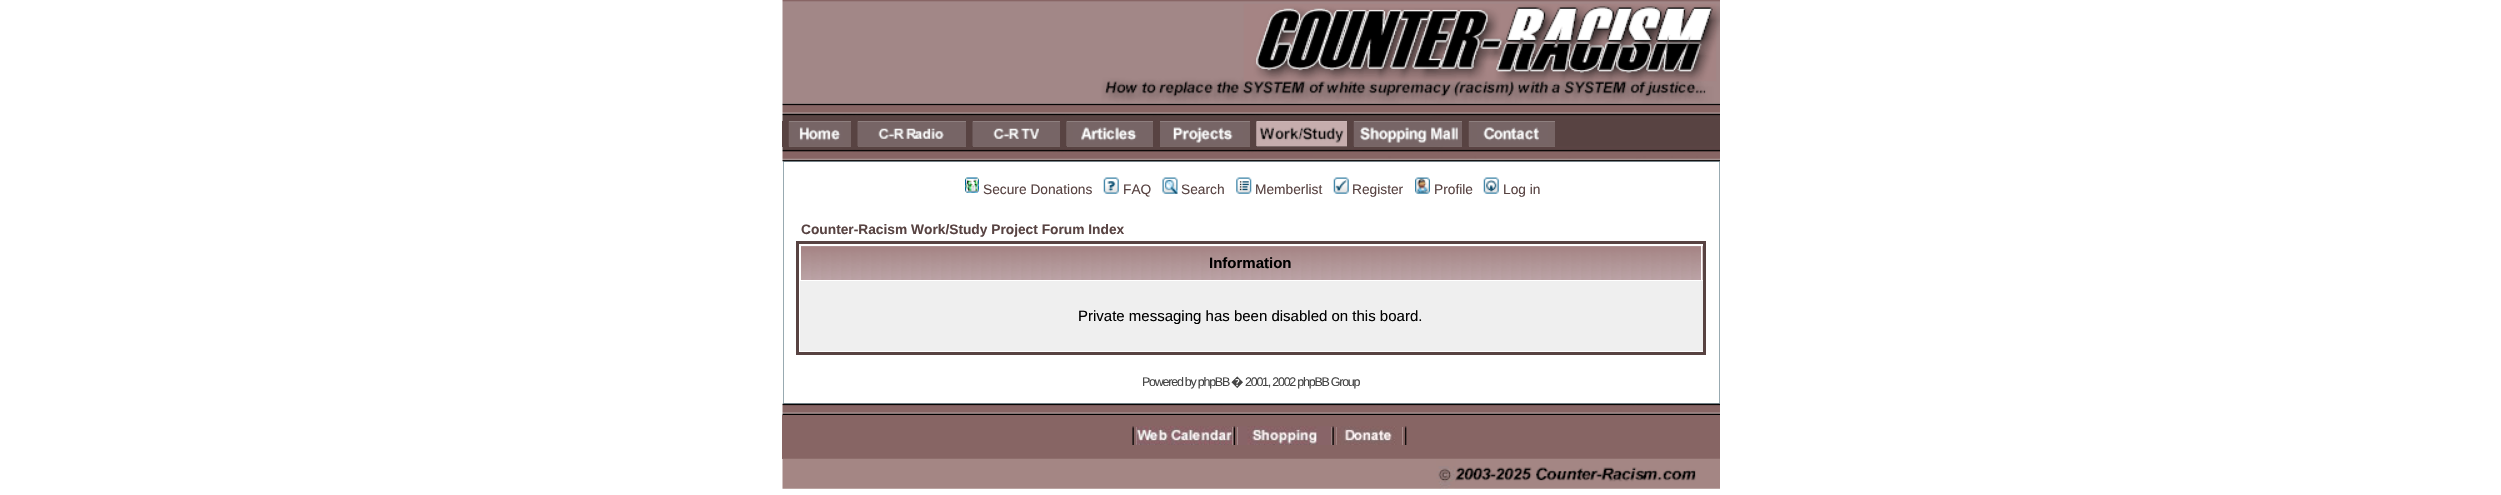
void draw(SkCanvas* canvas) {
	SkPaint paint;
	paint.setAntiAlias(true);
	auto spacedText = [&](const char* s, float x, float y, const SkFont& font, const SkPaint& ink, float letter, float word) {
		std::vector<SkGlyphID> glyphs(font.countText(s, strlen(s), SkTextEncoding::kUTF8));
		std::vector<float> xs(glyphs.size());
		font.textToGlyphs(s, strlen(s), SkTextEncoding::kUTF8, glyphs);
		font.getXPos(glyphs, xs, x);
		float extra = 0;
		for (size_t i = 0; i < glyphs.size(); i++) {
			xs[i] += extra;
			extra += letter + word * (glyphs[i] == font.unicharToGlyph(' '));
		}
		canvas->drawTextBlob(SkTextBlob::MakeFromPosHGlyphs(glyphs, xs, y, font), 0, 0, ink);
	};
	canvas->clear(0xffffffff);
	canvas->drawImageRect(SkImages::DeferredFromEncodedData(SkData::MakeFromFileName("img1.png")), SkRect::MakeXYWH(782, 0, 938, 104), SkSamplingOptions());
	canvas->drawImageRect(SkImages::DeferredFromEncodedData(SkData::MakeFromFileName("img2.png")), SkRect::MakeXYWH(782, 103, 938, 19), SkSamplingOptions());
	paint.setColor(0xff584342);
	canvas->drawRect(SkRect::MakeXYWH(782, 121, 7, 26), paint);
	canvas->drawImageRect(SkImages::DeferredFromEncodedData(SkData::MakeFromFileName("img3.png")), SkRect::MakeXYWH(788, 121, 63, 26), SkSamplingOptions());
	canvas->drawRect(SkRect::MakeXYWH(851, 121, 7, 26), paint);
	canvas->drawImageRect(SkImages::DeferredFromEncodedData(SkData::MakeFromFileName("img4.png")), SkRect::MakeXYWH(857, 121, 109, 26), SkSamplingOptions());
	canvas->drawRect(SkRect::MakeXYWH(966, 121, 7, 26), paint);
	canvas->drawImageRect(SkImages::DeferredFromEncodedData(SkData::MakeFromFileName("img5.png")), SkRect::MakeXYWH(972, 121, 88, 26), SkSamplingOptions());
	canvas->drawRect(SkRect::MakeXYWH(1060, 121, 7, 26), paint);
	canvas->drawImageRect(SkImages::DeferredFromEncodedData(SkData::MakeFromFileName("img6.png")), SkRect::MakeXYWH(1066, 121, 87, 26), SkSamplingOptions());
	canvas->drawRect(SkRect::MakeXYWH(1153, 121, 7, 26), paint);
	canvas->drawImageRect(SkImages::DeferredFromEncodedData(SkData::MakeFromFileName("img7.png")), SkRect::MakeXYWH(1160, 121, 90, 26), SkSamplingOptions());
	canvas->drawRect(SkRect::MakeXYWH(1250, 121, 7, 26), paint);
	canvas->drawImageRect(SkImages::DeferredFromEncodedData(SkData::MakeFromFileName("img8.png")), SkRect::MakeXYWH(1256, 121, 91, 26), SkSamplingOptions());
	canvas->drawRect(SkRect::MakeXYWH(1347, 121, 7, 26), paint);
	canvas->drawImageRect(SkImages::DeferredFromEncodedData(SkData::MakeFromFileName("img9.png")), SkRect::MakeXYWH(1353, 121, 109, 26), SkSamplingOptions());
	canvas->drawRect(SkRect::MakeXYWH(1462, 121, 7, 26), paint);
	canvas->drawImageRect(SkImages::DeferredFromEncodedData(SkData::MakeFromFileName("img10.png")), SkRect::MakeXYWH(1468, 121, 87, 26), SkSamplingOptions());
	canvas->drawRect(SkRect::MakeXYWH(1555, 121, 165, 26), paint);
	paint.setStroke(true);
	paint.setStrokeWidth(1);
	paint.setColor(0xff98aab1);
	canvas->drawRect(SkRect::MakeXYWH(783.5, 161.5, 936, 242), paint);
	canvas->drawImageRect(SkImages::DeferredFromEncodedData(SkData::MakeFromFileName("img11.png")), SkRect::MakeXYWH(782, 146, 938, 16), SkSamplingOptions());
	canvas->drawImageRect(SkImages::DeferredFromEncodedData(SkData::MakeFromFileName("img12.png")), SkRect::MakeXYWH(965, 177, 14, 16), SkSamplingOptions());
	SkFont f1(fontMgr->matchFamilyStyle("Liberation Sans", SkFontStyle::Normal()), 13.75);
	f1.setSubpixel(true);
	paint.setStroke(false);
	paint.setColor(0xff584342);
	canvas->drawString("Secure Donations", 983, 194, f1, paint);
	canvas->drawImageRect(SkImages::DeferredFromEncodedData(SkData::MakeFromFileName("img13.png")), SkRect::MakeXYWH(1103, 177, 16, 17), SkSamplingOptions());
	canvas->drawString("FAQ", 1123, 194, f1, paint);
	canvas->drawImageRect(SkImages::DeferredFromEncodedData(SkData::MakeFromFileName("img14.png")), SkRect::MakeXYWH(1162, 177, 16, 17), SkSamplingOptions());
	canvas->drawString("Search", 1181, 194, f1, paint);
	canvas->drawImageRect(SkImages::DeferredFromEncodedData(SkData::MakeFromFileName("img15.png")), SkRect::MakeXYWH(1236, 177, 16, 17), SkSamplingOptions());
	canvas->drawString("Memberlist", 1255, 194, f1, paint);
	canvas->drawImageRect(SkImages::DeferredFromEncodedData(SkData::MakeFromFileName("img16.png")), SkRect::MakeXYWH(1333, 177, 16, 17), SkSamplingOptions());
	canvas->drawString("Register", 1352, 194, f1, paint);
	canvas->drawImageRect(SkImages::DeferredFromEncodedData(SkData::MakeFromFileName("img17.png")), SkRect::MakeXYWH(1415, 177, 15, 17), SkSamplingOptions());
	canvas->drawString("Profile", 1434, 194, f1, paint);
	canvas->drawImageRect(SkImages::DeferredFromEncodedData(SkData::MakeFromFileName("img18.png")), SkRect::MakeXYWH(1483, 177, 16, 17), SkSamplingOptions());
	canvas->drawString("Log in", 1503, 194, f1, paint);
	SkFont f2(fontMgr->matchFamilyStyle("Liberation Sans", SkFontStyle::Bold()), 13.75);
	f2.setSubpixel(true);
	canvas->drawString("Counter-Racism Work/Study Project Forum Index", 801, 234, f2, paint);
	paint.setStroke(true);
	paint.setStrokeWidth(3);
	canvas->drawRect(SkRect::MakeXYWH(797.5, 242.5, 907, 111), paint);
	canvas->drawImageRect(SkImages::DeferredFromEncodedData(SkData::MakeFromFileName("img19.png")), SkRect::MakeXYWH(801, 246, 902, 34), SkSamplingOptions());
	paint.setStroke(false);
	paint.setColor(0xffffffff);
	canvas->drawRect(SkRect::MakeXYWH(1701, 245, 1, 35), paint);
	SkFont f3(fontMgr->matchFamilyStyle("Liberation Sans", SkFontStyle::Bold()), 15);
	f3.setSubpixel(true);
	paint.setColor(0xff000000);
	canvas->drawString("Information", 1209, 268, f3, paint);
	paint.setColor(0xffefefef);
	canvas->drawRect(SkRect::MakeXYWH(800, 281, 903, 70), paint);
	SkFont f4(fontMgr->matchFamilyStyle("Liberation Sans", SkFontStyle::Normal()), 15);
	f4.setSubpixel(true);
	paint.setColor(0xff000000);
	canvas->drawString("Private messaging has been disabled on this board.", 1078, 321, f4, paint);
	SkFont f5(fontMgr->matchFamilyStyle("Liberation Sans", SkFontStyle::Normal()), 12.5);
	f5.setSubpixel(true);
	paint.setColor(0xff444444);
	spacedText("Powered by phpBB", 1142, 386, f5, paint, -1.25, 0);
	SkFont f6(fontMgr->matchFamilyStyle("Noto Sans", SkFontStyle::Normal()), 12.5);
	f6.setSubpixel(true);
	spacedText("�", 1231, 386, f6, paint, -1.25, 0);
	spacedText("2001, 2002 phpBB Group", 1245, 386, f5, paint, -1.25, 0);
	canvas->drawImageRect(SkImages::DeferredFromEncodedData(SkData::MakeFromFileName("img20.png")), SkRect::MakeXYWH(782, 403, 938, 12), SkSamplingOptions());
	paint.setColor(0xff876564);
	canvas->drawRect(SkRect::MakeXYWH(782, 415, 938, 12), paint);
	canvas->drawRect(SkRect::MakeXYWH(782, 427, 351, 18), paint);
	canvas->drawImageRect(SkImages::DeferredFromEncodedData(SkData::MakeFromFileName("img21.png")), SkRect::MakeXYWH(1132, 426, 5, 19), SkSamplingOptions());
	canvas->drawImageRect(SkImages::DeferredFromEncodedData(SkData::MakeFromFileName("img22.png")), SkRect::MakeXYWH(1136, 426, 97, 19), SkSamplingOptions());
	canvas->drawImageRect(SkImages::DeferredFromEncodedData(SkData::MakeFromFileName("img23.png")), SkRect::MakeXYWH(1232, 426, 6, 19), SkSamplingOptions());
	canvas->drawImageRect(SkImages::DeferredFromEncodedData(SkData::MakeFromFileName("img24.png")), SkRect::MakeXYWH(1237, 426, 95, 19), SkSamplingOptions());
	canvas->drawImageRect(SkImages::DeferredFromEncodedData(SkData::MakeFromFileName("img25.png")), SkRect::MakeXYWH(1331, 426, 6, 19), SkSamplingOptions());
	canvas->drawImageRect(SkImages::DeferredFromEncodedData(SkData::MakeFromFileName("img26.png")), SkRect::MakeXYWH(1336, 426, 67, 19), SkSamplingOptions());
	canvas->drawImageRect(SkImages::DeferredFromEncodedData(SkData::MakeFromFileName("img27.png")), SkRect::MakeXYWH(1402, 426, 6, 19), SkSamplingOptions());
	canvas->drawRect(SkRect::MakeXYWH(1407, 427, 313, 18), paint);
	canvas->drawRect(SkRect::MakeXYWH(782, 445, 938, 14), paint);
	canvas->drawImageRect(SkImages::DeferredFromEncodedData(SkData::MakeFromFileName("img28.png")), SkRect::MakeXYWH(782, 458, 938, 31), SkSamplingOptions());
}
